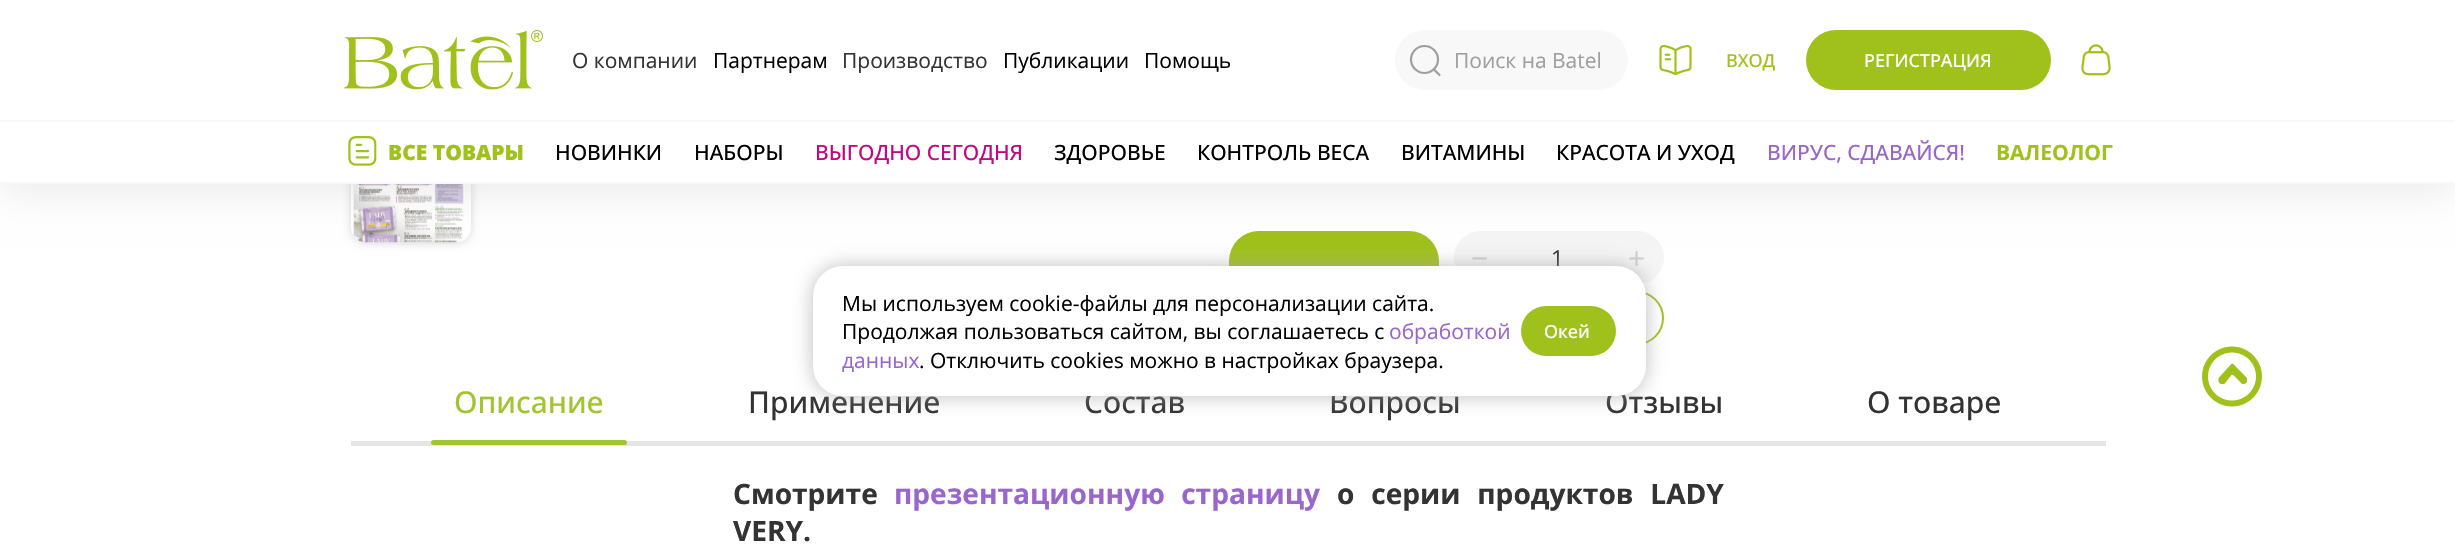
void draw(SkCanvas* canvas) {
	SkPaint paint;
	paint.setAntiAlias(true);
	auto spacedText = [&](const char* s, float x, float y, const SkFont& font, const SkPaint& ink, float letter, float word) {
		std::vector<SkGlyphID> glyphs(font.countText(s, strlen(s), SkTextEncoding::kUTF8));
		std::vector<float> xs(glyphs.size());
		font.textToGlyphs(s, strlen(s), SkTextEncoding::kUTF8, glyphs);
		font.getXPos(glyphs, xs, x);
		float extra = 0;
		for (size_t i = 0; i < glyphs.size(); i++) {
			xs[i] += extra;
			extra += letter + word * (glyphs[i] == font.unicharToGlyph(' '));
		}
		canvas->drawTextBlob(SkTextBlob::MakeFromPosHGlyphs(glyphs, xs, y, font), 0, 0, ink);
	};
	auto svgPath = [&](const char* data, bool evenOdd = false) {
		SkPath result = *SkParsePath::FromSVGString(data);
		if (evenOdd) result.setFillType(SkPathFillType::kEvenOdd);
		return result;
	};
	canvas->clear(0xffffffff);
	paint.setColor(0x26000000);
	paint.setMaskFilter(SkMaskFilter::MakeBlur(kNormal_SkBlurStyle, 4));
	canvas->drawRoundRect(SkRect::MakeXYWH(351, 123, 120, 120), 15, 15, paint);
	paint.setMaskFilter(nullptr);
	canvas->drawImageRect(SkImages::DeferredFromEncodedData(SkData::MakeFromFileName("img5.png")), SkRect::MakeXYWH(351, 184, 120, 59), SkSamplingOptions());
	paint.setColor(0xffa0c11b);
	canvas->drawRoundRect(SkRect::MakeXYWH(1229, 231, 210, 114), 30, 30, paint);
	paint.setColor(0xfff5f5f5);
	canvas->drawRoundRect(SkRect::MakeXYWH(1454, 231, 210, 53), 26.5, 26.5, paint);
	paint.setColor(0x17000000);
	paint.setMaskFilter(SkMaskFilter::MakeBlur(kNormal_SkBlurStyle, 20));
	canvas->drawRect(SkRect::MakeXYWH(0, 6, 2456, 183), paint);
	paint.setMaskFilter(nullptr);
	paint.setColor(0xffffffff);
	canvas->drawRect(SkRect::MakeXYWH(0, 0, 2455, 182), paint);
	canvas->drawImageRect(SkImages::DeferredFromEncodedData(SkData::MakeFromFileName("img1.png")), SkRect::MakeXYWH(344, 30, 199, 60), SkSamplingOptions());
	SkFont f1(fontMgr->matchFamilyStyle("Open Sans", SkFontStyle::Normal()), 21);
	f1.setSubpixel(true);
	paint.setColor(0xff333333);
	canvas->drawString("О компании", 572, 68, f1, paint);
	paint.setColor(0xff000000);
	canvas->drawString("Партнерам", 713, 68, f1, paint);
	paint.setColor(0xff333333);
	canvas->drawString("Производство", 842, 68, f1, paint);
	paint.setColor(0xff000000);
	canvas->drawString("Публикации", 1003, 68, f1, paint);
	canvas->drawString("Помощь", 1144, 68, f1, paint);
	paint.setColor(0xfff8f8f8);
	canvas->drawRoundRect(SkRect::MakeXYWH(1395, 30, 233, 60), 30, 30, paint);
	paint.setStroke(true);
	paint.setStrokeWidth(2.2);
	paint.setColor(0xff9f9f9f);
	canvas->drawCircle(1424.5, 59.5, 13.5, paint);
	paint.setStrokeCap(SkPaint::kRound_Cap);
	paint.setStrokeJoin(SkPaint::kRound_Join);
	canvas->drawPath(svgPath("M1434 69.5L1439.5 75"), paint);
	paint.setStroke(false);
	canvas->drawString("Поиск на Batel", 1454, 68, f1, paint);
	canvas->drawImageRect(SkImages::DeferredFromEncodedData(SkData::MakeFromFileName("img2.png")), SkRect::MakeXYWH(1659, 44, 33, 32), SkSamplingOptions());
	SkFont f2(fontMgr->matchFamilyStyle("Open Sans", SkFontStyle(500, SkFontStyle::kNormal_Width, SkFontStyle::kUpright_Slant)), 18);
	f2.setSubpixel(true);
	paint.setColor(0xffa0c11b);
	canvas->drawString("ВХОД", 1726, 67, f2, paint);
	canvas->drawRoundRect(SkRect::MakeXYWH(1806, 30, 245, 60), 30, 30, paint);
	paint.setColor(0xffffffff);
	canvas->drawString("РЕГИСТРАЦИЯ", 1864, 67, f2, paint);
	canvas->drawImageRect(SkImages::DeferredFromEncodedData(SkData::MakeFromFileName("img3.png")), SkRect::MakeXYWH(2081, 44, 30, 32), SkSamplingOptions());
	paint.setColor(0xfff8f8f8);
	canvas->drawRect(SkRect::MakeXYWH(0, 120, 2455, 2), paint);
	canvas->drawRect(SkRect::MakeXYWH(9, 182, 2446, 2), paint);
	canvas->drawImageRect(SkImages::DeferredFromEncodedData(SkData::MakeFromFileName("img4.png")), SkRect::MakeXYWH(348, 136, 29, 30), SkSamplingOptions());
	SkFont f3(fontMgr->matchFamilyStyle("Open Sans", SkFontStyle(800, SkFontStyle::kNormal_Width, SkFontStyle::kUpright_Slant)), 21);
	f3.setSubpixel(true);
	paint.setColor(0xffa0c11b);
	canvas->drawString("ВСЕ ТОВАРЫ", 388, 160, f3, paint);
	SkFont f4(fontMgr->matchFamilyStyle("Open Sans", SkFontStyle(500, SkFontStyle::kNormal_Width, SkFontStyle::kUpright_Slant)), 21);
	f4.setSubpixel(true);
	paint.setColor(0xff000000);
	canvas->drawString("НОВИНКИ", 555, 160, f4, paint);
	canvas->drawString("НАБОРЫ", 694, 160, f4, paint);
	paint.setColor(0xffc20880);
	canvas->drawString("ВЫГОДНО СЕГОДНЯ", 815, 160, f4, paint);
	paint.setColor(0xff000000);
	canvas->drawString("ЗДОРОВЬЕ", 1054, 160, f4, paint);
	canvas->drawString("КОНТРОЛЬ ВЕСА", 1197, 160, f4, paint);
	canvas->drawString("ВИТАМИНЫ", 1401, 160, f4, paint);
	canvas->drawString("КРАСОТА И УХОД", 1556, 160, f4, paint);
	paint.setColor(0xff9966cc);
	canvas->drawString("ВИРУС, СДАВАЙСЯ!", 1767, 160, f4, paint);
	SkFont f5(fontMgr->matchFamilyStyle("Open Sans", SkFontStyle::Bold()), 21);
	f5.setSubpixel(true);
	paint.setColor(0xffa0c11b);
	canvas->drawString("ВАЛЕОЛОГ", 1996, 160, f5, paint);
	SkFont f6(fontMgr->matchFamilyStyle("Open Sans", SkFontStyle::Normal()), 30);
	f6.setSubpixel(true);
	paint.setColor(0xffcfcfcf);
	canvas->drawString("−", 1471, 269, f6, paint);
	SkFont f7(fontMgr->matchFamilyStyle("Open Sans", SkFontStyle::Normal()), 22);
	f7.setSubpixel(true);
	paint.setColor(0xff333333);
	canvas->drawString("1", 1551, 266, f7, paint);
	paint.setColor(0xffcfcfcf);
	canvas->drawString("+", 1628, 269, f6, paint);
	paint.setStroke(true);
	paint.setStrokeWidth(2);
	paint.setStrokeCap(SkPaint::kButt_Cap);
	paint.setStrokeJoin(SkPaint::kMiter_Join);
	paint.setColor(0xffa0c11b);
	canvas->drawRoundRect(SkRect::MakeXYWH(1455, 292, 208, 52), 26, 26, paint);
	paint.setStroke(false);
	paint.setColor(0xffe5e5e5);
	canvas->drawRect(SkRect::MakeXYWH(351, 441, 1755, 5), paint);
	SkFont f8(fontMgr->matchFamilyStyle("Open Sans", SkFontStyle(500, SkFontStyle::kNormal_Width, SkFontStyle::kUpright_Slant)), 30);
	f8.setSubpixel(true);
	paint.setColor(0xffa0c530);
	canvas->drawString("Описание", 454, 413, f8, paint);
	canvas->drawRoundRect(SkRect::MakeXYWH(431, 440, 196, 5), 2.5, 2.5, paint);
	paint.setColor(0xff333333);
	canvas->drawString("Применение", 748, 413, f8, paint);
	canvas->drawString("Состав", 1084, 413, f8, paint);
	canvas->drawString("Вопросы", 1329, 413, f8, paint);
	canvas->drawString("Отзывы", 1605, 413, f8, paint);
	canvas->drawString("О товаре", 1867, 413, f8, paint);
	SkFont f9(fontMgr->matchFamilyStyle("Open Sans", SkFontStyle::Bold()), 28.1);
	f9.setSubpixel(true);
	canvas->drawString("Смотрите", 733, 504, f9, paint);
	paint.setColor(0xff9966cc);
	spacedText("презентационную страницу", 894, 504, f9, paint, 0, 9);
	paint.setColor(0xff333333);
	spacedText("о серии продуктов LADY", 1337, 504, f9, paint, 0, 9.5);
	canvas->drawString("VERY.", 733, 541, f9, paint);
	paint.setColor(0xb3a1a1a1);
	paint.setMaskFilter(SkMaskFilter::MakeBlur(kNormal_SkBlurStyle, 10));
	canvas->drawRoundRect(SkRect::MakeXYWH(813, 266, 833, 130), 30, 30, paint);
	paint.setMaskFilter(nullptr);
	paint.setColor(0xffffffff);
	canvas->drawRoundRect(SkRect::MakeXYWH(813, 266, 833, 130), 30, 30, paint);
	paint.setColor(0xff000000);
	canvas->drawString("Мы используем cookie-файлы для персонализации сайта.", 842, 311, f1, paint);
	canvas->drawString("Продолжая пользоваться сайтом, вы соглашаетесь с", 842, 339, f1, paint);
	paint.setColor(0xff9966cc);
	canvas->drawString("обработкой", 1389, 339, f1, paint);
	canvas->drawString("данных", 842, 368, f1, paint);
	paint.setColor(0xff000000);
	canvas->drawString(". Отключить cookies можно в настройках браузера.", 919, 368, f1, paint);
	paint.setColor(0xffa0c11b);
	canvas->drawRoundRect(SkRect::MakeXYWH(1521, 306, 95, 50), 25, 25, paint);
	paint.setColor(0xffffffff);
	canvas->drawString("Окей", 1544, 338, f2, paint);
	canvas->drawImageRect(SkImages::DeferredFromEncodedData(SkData::MakeFromFileName("img6.png")), SkRect::MakeXYWH(2202, 346, 60, 61), SkSamplingOptions());
}
